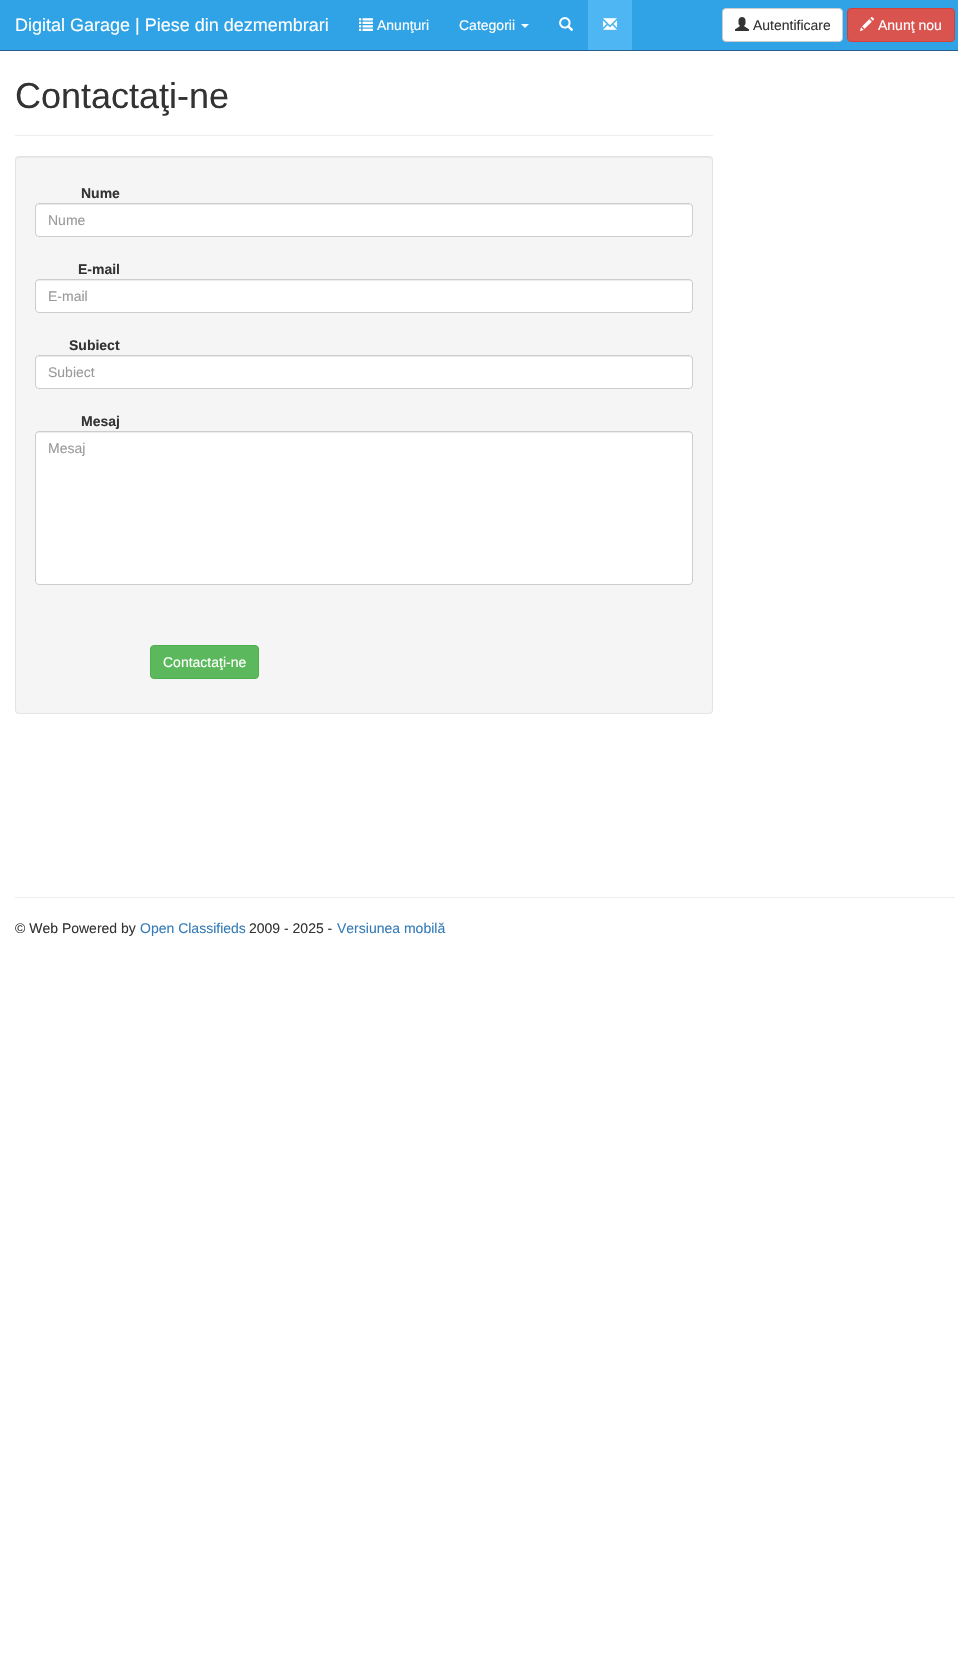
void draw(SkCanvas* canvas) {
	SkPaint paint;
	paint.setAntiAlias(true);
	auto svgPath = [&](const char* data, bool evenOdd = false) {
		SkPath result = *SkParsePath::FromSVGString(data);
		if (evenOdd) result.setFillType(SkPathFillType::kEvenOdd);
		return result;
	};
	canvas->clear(0xffffffff);
	paint.setColor(0xff2fa3e6);
	canvas->drawRect(SkRect::MakeXYWH(0, 0, 958, 50), paint);
	paint.setColor(0xff285e8e);
	canvas->drawRect(SkRect::MakeXYWH(0, 50, 958, 1), paint);
	SkFont f1(fontMgr->matchFamilyStyle("Liberation Sans", SkFontStyle::Normal()), 18);
	f1.setSubpixel(true);
	paint.setColor(0xffffffff);
	canvas->drawString("Digital Garage | Piese din dezmembrari", 15, 31, f1, paint);
	canvas->drawImageRect(SkImages::DeferredFromEncodedData(SkData::MakeFromFileName("img1.png")), SkRect::MakeXYWH(359, 18, 14, 13), SkSamplingOptions());
	SkFont f2(fontMgr->matchFamilyStyle("Liberation Sans", SkFontStyle::Normal()), 14);
	f2.setSubpixel(true);
	canvas->drawString("Anunţuri", 377, 30, f2, paint);
	canvas->drawString("Categorii", 459, 30, f2, paint);
	canvas->drawPath(svgPath("M521 24H529L525 28Z"), paint);
	canvas->drawImageRect(SkImages::DeferredFromEncodedData(SkData::MakeFromFileName("img2.png")), SkRect::MakeXYWH(559, 17, 15, 14), SkSamplingOptions());
	paint.setColor(0xff4eb7f3);
	canvas->drawRect(SkRect::MakeXYWH(588, 0, 44, 50), paint);
	canvas->drawImageRect(SkImages::DeferredFromEncodedData(SkData::MakeFromFileName("img3.png")), SkRect::MakeXYWH(603, 18, 14, 12), SkSamplingOptions());
	paint.setColor(0xffffffff);
	canvas->drawRoundRect(SkRect::MakeXYWH(722.5, 8.5, 120, 33), 3.5, 3.5, paint);
	paint.setStroke(true);
	paint.setStrokeWidth(1);
	paint.setColor(0xffcccccc);
	canvas->drawRoundRect(SkRect::MakeXYWH(722.5, 8.5, 120, 33), 3.5, 3.5, paint);
	canvas->drawImageRect(SkImages::DeferredFromEncodedData(SkData::MakeFromFileName("img4.png")), SkRect::MakeXYWH(735, 17, 14, 14), SkSamplingOptions());
	paint.setStroke(false);
	paint.setColor(0xff333333);
	canvas->drawString("Autentificare", 753, 30, f2, paint);
	paint.setColor(0xffd9534f);
	canvas->drawRoundRect(SkRect::MakeXYWH(847.5, 8.5, 107, 33), 3.5, 3.5, paint);
	paint.setStroke(true);
	paint.setColor(0xffd43f3a);
	canvas->drawRoundRect(SkRect::MakeXYWH(847.5, 8.5, 107, 33), 3.5, 3.5, paint);
	canvas->drawImageRect(SkImages::DeferredFromEncodedData(SkData::MakeFromFileName("img5.png")), SkRect::MakeXYWH(859, 16, 16, 16), SkSamplingOptions());
	paint.setStroke(false);
	paint.setColor(0xffffffff);
	canvas->drawString("Anunţ nou", 878, 30, f2, paint);
	paint.setColor(0xffeeeeee);
	canvas->drawRect(SkRect::MakeXYWH(15, 135, 698, 1), paint);
	SkFont f3(fontMgr->matchFamilyStyle("Liberation Sans", SkFontStyle::Normal()), 36);
	f3.setSubpixel(true);
	paint.setColor(0xff333333);
	canvas->drawString("Contactaţi-ne", 15, 108, f3, paint);
	paint.setColor(0xfff5f5f5);
	canvas->drawRoundRect(SkRect::MakeXYWH(15, 156, 698, 558), 4, 4, paint);
	paint.setColor(0xffe9e9e9);
	canvas->drawPath(svgPath("M19 158H709C711 158 712 159 712 161C712 159 711 157 709 157H19C17 157 16 159 16 161C16 159 17 158 19 158Z"), paint);
	paint.setStroke(true);
	paint.setColor(0xffe3e3e3);
	canvas->drawRoundRect(SkRect::MakeXYWH(15.5, 156.5, 697, 557), 3.5, 3.5, paint);
	SkFont f4(fontMgr->matchFamilyStyle("Liberation Sans", SkFontStyle::Bold()), 14);
	f4.setSubpixel(true);
	paint.setStroke(false);
	paint.setColor(0xff333333);
	canvas->drawString("Nume", 81, 198, f4, paint);
	paint.setColor(0xffffffff);
	canvas->drawRoundRect(SkRect::MakeXYWH(35, 203, 658, 34), 4, 4, paint);
	paint.setColor(0xffececec);
	canvas->drawPath(svgPath("M39 205H689C691 205 692 206 692 208C692 206 691 204 689 204H39C37 204 36 206 36 208C36 206 37 205 39 205Z"), paint);
	paint.setStroke(true);
	paint.setColor(0xffcccccc);
	canvas->drawRoundRect(SkRect::MakeXYWH(35.5, 203.5, 657, 33), 3.5, 3.5, paint);
	paint.setStroke(false);
	paint.setColor(0xff999999);
	canvas->drawString("Nume", 48, 225, f2, paint);
	paint.setColor(0xff333333);
	canvas->drawString("E-mail", 78, 274, f4, paint);
	paint.setColor(0xffffffff);
	canvas->drawRoundRect(SkRect::MakeXYWH(35, 279, 658, 34), 4, 4, paint);
	paint.setColor(0xffececec);
	canvas->drawPath(svgPath("M39 281H689C691 281 692 282 692 284C692 282 691 280 689 280H39C37 280 36 282 36 284C36 282 37 281 39 281Z"), paint);
	paint.setStroke(true);
	paint.setColor(0xffcccccc);
	canvas->drawRoundRect(SkRect::MakeXYWH(35.5, 279.5, 657, 33), 3.5, 3.5, paint);
	paint.setStroke(false);
	paint.setColor(0xff999999);
	canvas->drawString("E-mail", 48, 301, f2, paint);
	paint.setColor(0xff333333);
	canvas->drawString("Subiect", 69, 350, f4, paint);
	paint.setColor(0xffffffff);
	canvas->drawRoundRect(SkRect::MakeXYWH(35, 355, 658, 34), 4, 4, paint);
	paint.setColor(0xffececec);
	canvas->drawPath(svgPath("M39 357H689C691 357 692 358 692 360C692 358 691 356 689 356H39C37 356 36 358 36 360C36 358 37 357 39 357Z"), paint);
	paint.setStroke(true);
	paint.setColor(0xffcccccc);
	canvas->drawRoundRect(SkRect::MakeXYWH(35.5, 355.5, 657, 33), 3.5, 3.5, paint);
	paint.setStroke(false);
	paint.setColor(0xff999999);
	canvas->drawString("Subiect", 48, 377, f2, paint);
	paint.setColor(0xff333333);
	canvas->drawString("Mesaj", 81, 426, f4, paint);
	paint.setColor(0xffffffff);
	canvas->drawRoundRect(SkRect::MakeXYWH(35, 431, 658, 154), 4, 4, paint);
	paint.setColor(0xffececec);
	canvas->drawPath(svgPath("M39 433H689C691 433 692 434 692 436C692 434 691 432 689 432H39C37 432 36 434 36 436C36 434 37 433 39 433Z"), paint);
	paint.setStroke(true);
	paint.setColor(0xffcccccc);
	canvas->drawRoundRect(SkRect::MakeXYWH(35.5, 431.5, 657, 153), 3.5, 3.5, paint);
	paint.setStroke(false);
	paint.setColor(0xff999999);
	canvas->drawString("Mesaj", 48, 453, f2, paint);
	paint.setColor(0xff5cb85c);
	canvas->drawRoundRect(SkRect::MakeXYWH(150.5, 645.5, 108, 33), 3.5, 3.5, paint);
	paint.setStroke(true);
	paint.setColor(0xff4cae4c);
	canvas->drawRoundRect(SkRect::MakeXYWH(150.5, 645.5, 108, 33), 3.5, 3.5, paint);
	paint.setStroke(false);
	paint.setColor(0xffffffff);
	canvas->drawString("Contactaţi-ne", 163, 667, f2, paint);
	paint.setColor(0xffeeeeee);
	canvas->drawRect(SkRect::MakeXYWH(15, 897, 940, 1), paint);
	paint.setColor(0xff333333);
	canvas->drawString("© Web Powered by", 15, 933, f2, paint);
	paint.setColor(0xff337ab7);
	canvas->drawString("Open Classifieds", 140, 933, f2, paint);
	paint.setColor(0xff333333);
	canvas->drawString("2009 - 2025 -", 249, 933, f2, paint);
	paint.setColor(0xff337ab7);
	canvas->drawString("Versiunea mobilă", 337, 933, f2, paint);
}
